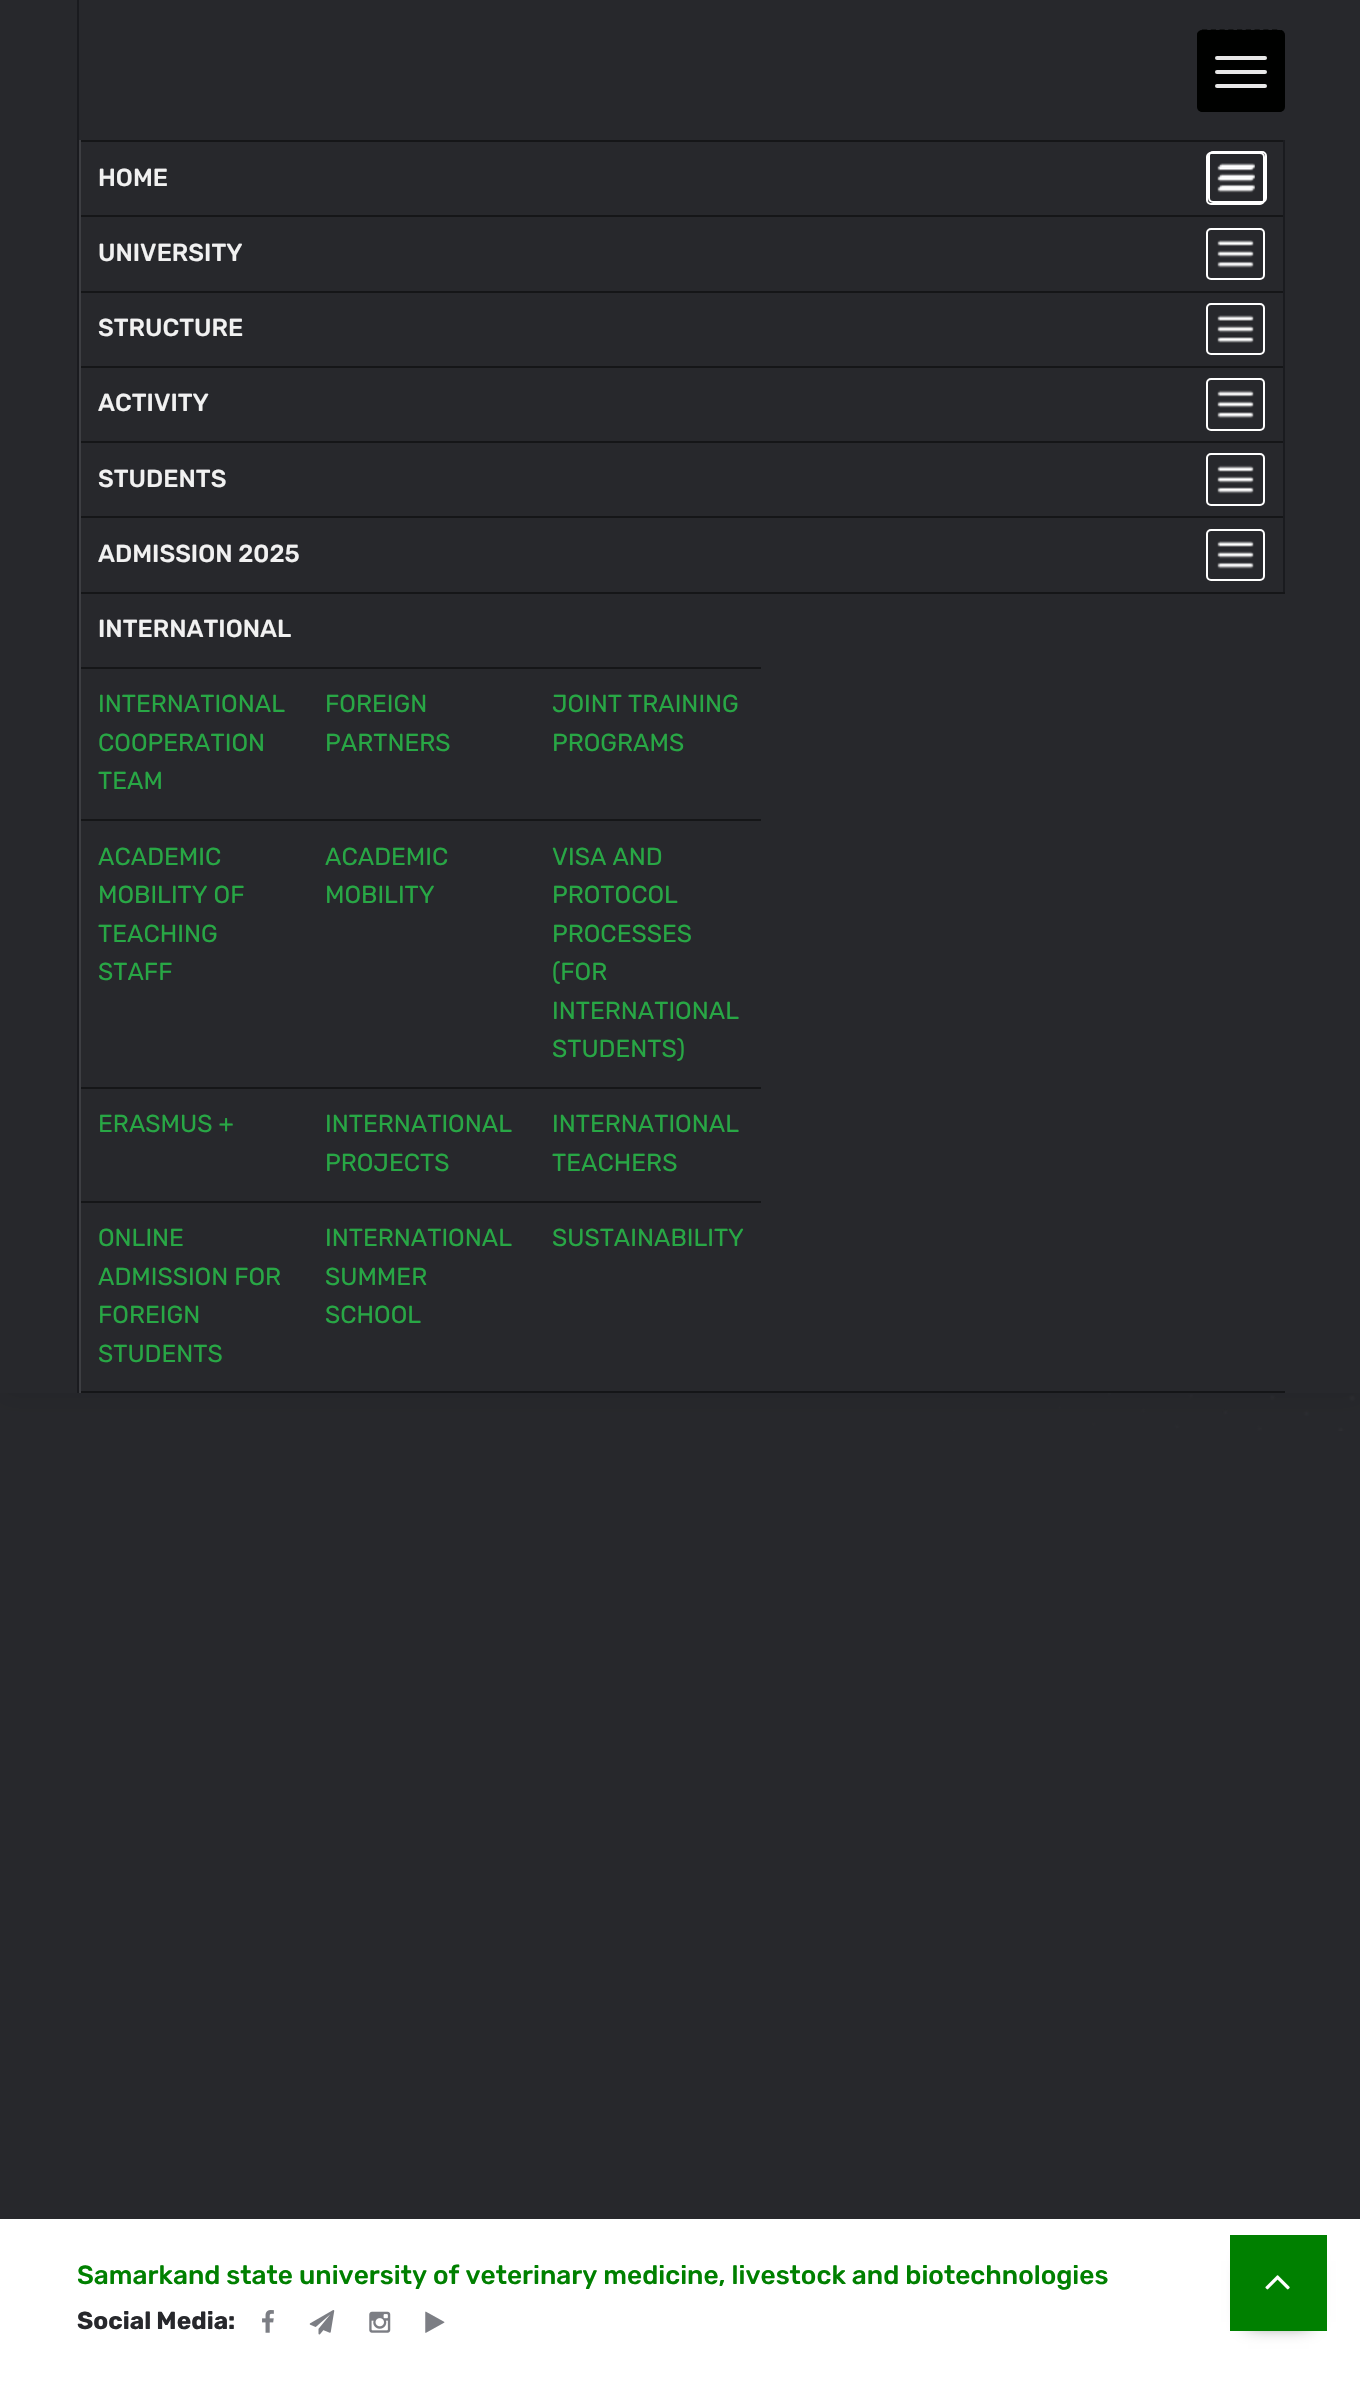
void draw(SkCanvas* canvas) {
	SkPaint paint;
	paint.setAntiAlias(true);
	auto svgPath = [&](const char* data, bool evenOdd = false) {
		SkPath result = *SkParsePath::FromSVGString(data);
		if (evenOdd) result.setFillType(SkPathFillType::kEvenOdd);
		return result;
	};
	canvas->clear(0xffffffff);
	paint.setColor(0xff27282c);
	canvas->drawRect(SkRect::MakeXYWH(0, 1393, 1360, 826), paint);
	canvas->drawImageRect(SkImages::DeferredFromEncodedData(SkData::MakeFromFileName("img7.png")), SkRect::MakeXYWH(919, 1393, 438, 38), SkSamplingOptions());
	paint.setColor(0x1a000000);
	paint.setMaskFilter(SkMaskFilter::MakeBlur(kNormal_SkBlurStyle, 13));
	canvas->drawRect(SkRect::MakeXYWH(0, 0, 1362, 1393), paint);
	paint.setMaskFilter(nullptr);
	paint.setColor(0xff27282c);
	canvas->drawRect(SkRect::MakeXYWH(0, 0, 1360, 1393), paint);
	paint.setColor(0xff1a1b1f);
	canvas->drawRect(SkRect::MakeXYWH(77, 0, 2, 1393), paint);
	paint.setColor(0xff000100);
	canvas->drawRoundRect(SkRect::MakeXYWH(1197, 30, 88, 82), 5, 5, paint);
	paint.setStroke(true);
	paint.setStrokeWidth(1.8);
	paint.setPathEffect(SkDashPathEffect::Make({{5.25f, 3.5f}}, 0));
	canvas->drawPath(svgPath("M1202 30.5H1279C1281.5 30.5 1283.5 32.5 1283.5 35V107C1283.5 109 1281.5 111 1279 111H1202C1200 111 1198 109 1198 107V35C1198 32.5 1200 30.5 1202 30.5Z"), paint);
	paint.setPathEffect(nullptr);
	paint.setStroke(false);
	paint.setColor(0xffe7e7e7);
	canvas->drawRoundRect(SkRect::MakeXYWH(1215, 56, 52, 4), 2, 2, paint);
	canvas->drawRoundRect(SkRect::MakeXYWH(1215, 70, 52, 4), 2, 2, paint);
	canvas->drawRoundRect(SkRect::MakeXYWH(1215, 84, 52, 4), 2, 2, paint);
	paint.setColor(0xff151618);
	canvas->drawRect(SkRect::MakeXYWH(79, 140, 1206, 2), paint);
	paint.setColor(0xff1a1b1f);
	canvas->drawRect(SkRect::MakeXYWH(1283, 140, 2, 75), paint);
	paint.setColor(0xff3d3e42);
	canvas->drawRect(SkRect::MakeXYWH(79, 140, 2, 75), paint);
	SkFont f1(fontMgr->matchFamilyStyle("Rubik", SkFontStyle(500, SkFontStyle::kNormal_Width, SkFontStyle::kUpright_Slant)), 24.5);
	f1.setSubpixel(true);
	paint.setColor(0xfff1f1f1);
	canvas->drawString("HOME", 98, 186, f1, paint);
	canvas->drawImageRect(SkImages::DeferredFromEncodedData(SkData::MakeFromFileName("img1.png")), SkRect::MakeXYWH(1217, 165, 37, 28), SkSamplingOptions());
	paint.setStroke(true);
	paint.setStrokeWidth(2);
	paint.setColor(0xffffffff);
	canvas->drawRoundRect(SkRect::MakeXYWH(1207, 153, 57, 51), 4, 4, paint);
	paint.setStroke(false);
	paint.setColor(0xff151618);
	canvas->drawRect(SkRect::MakeXYWH(79, 215, 1206, 2), paint);
	paint.setColor(0xff1a1b1f);
	canvas->drawRect(SkRect::MakeXYWH(1283, 215, 2, 76), paint);
	paint.setColor(0xff3d3e42);
	canvas->drawRect(SkRect::MakeXYWH(79, 215, 2, 76), paint);
	paint.setColor(0xfff1f1f1);
	canvas->drawString("UNIVERSITY", 98, 261, f1, paint);
	canvas->drawImageRect(SkImages::DeferredFromEncodedData(SkData::MakeFromFileName("img2.png")), SkRect::MakeXYWH(1217, 240, 37, 28), SkSamplingOptions());
	paint.setStroke(true);
	paint.setColor(0xffffffff);
	canvas->drawRoundRect(SkRect::MakeXYWH(1207, 229, 57, 50), 4, 4, paint);
	paint.setStroke(false);
	paint.setColor(0xff151618);
	canvas->drawRect(SkRect::MakeXYWH(79, 291, 1206, 2), paint);
	paint.setColor(0xff1a1b1f);
	canvas->drawRect(SkRect::MakeXYWH(1283, 291, 2, 75), paint);
	paint.setColor(0xff3d3e42);
	canvas->drawRect(SkRect::MakeXYWH(79, 291, 2, 75), paint);
	paint.setColor(0xfff1f1f1);
	canvas->drawString("STRUCTURE", 98, 336, f1, paint);
	canvas->drawImageRect(SkImages::DeferredFromEncodedData(SkData::MakeFromFileName("img3.png")), SkRect::MakeXYWH(1217, 315, 37, 28), SkSamplingOptions());
	paint.setStroke(true);
	paint.setColor(0xffffffff);
	canvas->drawRoundRect(SkRect::MakeXYWH(1207, 304, 57, 50), 4, 4, paint);
	paint.setStroke(false);
	paint.setColor(0xff151618);
	canvas->drawRect(SkRect::MakeXYWH(79, 366, 1206, 2), paint);
	paint.setColor(0xff1a1b1f);
	canvas->drawRect(SkRect::MakeXYWH(1283, 366, 2, 75), paint);
	paint.setColor(0xff3d3e42);
	canvas->drawRect(SkRect::MakeXYWH(79, 366, 2, 75), paint);
	paint.setColor(0xfff1f1f1);
	canvas->drawString("ACTIVITY", 98, 411, f1, paint);
	canvas->drawImageRect(SkImages::DeferredFromEncodedData(SkData::MakeFromFileName("img4.png")), SkRect::MakeXYWH(1217, 390, 37, 29), SkSamplingOptions());
	paint.setStroke(true);
	paint.setColor(0xffffffff);
	canvas->drawRoundRect(SkRect::MakeXYWH(1207, 379, 57, 51), 4, 4, paint);
	paint.setStroke(false);
	paint.setColor(0xff151618);
	canvas->drawRect(SkRect::MakeXYWH(79, 441, 1206, 2), paint);
	paint.setColor(0xff1a1b1f);
	canvas->drawRect(SkRect::MakeXYWH(1283, 441, 2, 75), paint);
	paint.setColor(0xff3d3e42);
	canvas->drawRect(SkRect::MakeXYWH(79, 441, 2, 75), paint);
	paint.setColor(0xfff1f1f1);
	canvas->drawString("STUDENTS", 98, 487, f1, paint);
	canvas->drawImageRect(SkImages::DeferredFromEncodedData(SkData::MakeFromFileName("img5.png")), SkRect::MakeXYWH(1217, 465, 37, 29), SkSamplingOptions());
	paint.setStroke(true);
	paint.setColor(0xffffffff);
	canvas->drawRoundRect(SkRect::MakeXYWH(1207, 454, 57, 51), 4, 4, paint);
	paint.setStroke(false);
	paint.setColor(0xff151618);
	canvas->drawRect(SkRect::MakeXYWH(79, 516, 1206, 2), paint);
	paint.setColor(0xff1a1b1f);
	canvas->drawRect(SkRect::MakeXYWH(1283, 516, 2, 76), paint);
	paint.setColor(0xff3d3e42);
	canvas->drawRect(SkRect::MakeXYWH(79, 516, 2, 76), paint);
	paint.setColor(0xfff1f1f1);
	canvas->drawString("ADMISSION 2025", 98, 562, f1, paint);
	canvas->drawImageRect(SkImages::DeferredFromEncodedData(SkData::MakeFromFileName("img2.png")), SkRect::MakeXYWH(1217, 541, 37, 28), SkSamplingOptions());
	paint.setStroke(true);
	paint.setColor(0xffffffff);
	canvas->drawRoundRect(SkRect::MakeXYWH(1207, 530, 57, 50), 4, 4, paint);
	paint.setStroke(false);
	paint.setColor(0xff151618);
	canvas->drawRect(SkRect::MakeXYWH(79, 592, 1206, 2), paint);
	canvas->drawRect(SkRect::MakeXYWH(79, 1391, 1206, 2), paint);
	paint.setColor(0xff3d3e42);
	canvas->drawRect(SkRect::MakeXYWH(79, 592, 2, 801), paint);
	canvas->drawImageRect(SkImages::DeferredFromEncodedData(SkData::MakeFromFileName("img6.png")), SkRect::MakeXYWH(1219, 163, 36, 28), SkSamplingOptions());
	paint.setStroke(true);
	paint.setColor(0xffffffff);
	canvas->drawRoundRect(SkRect::MakeXYWH(1209, 152, 57, 50), 4, 4, paint);
	paint.setStroke(false);
	paint.setColor(0xfff1f1f1);
	canvas->drawString("INTERNATIONAL", 98, 637, f1, paint);
	paint.setColor(0xff151618);
	canvas->drawRect(SkRect::MakeXYWH(81, 667, 680, 2), paint);
	SkFont f2(fontMgr->matchFamilyStyle("Rubik", SkFontStyle::Normal()), 24.5);
	f2.setSubpixel(true);
	paint.setColor(0xff28a745);
	canvas->drawString("INTERNATIONAL", 98, 712, f2, paint);
	canvas->drawString("COOPERATION", 98, 751, f2, paint);
	canvas->drawString("TEAM", 98, 789, f2, paint);
	canvas->drawString("FOREIGN", 325, 712, f2, paint);
	canvas->drawString("PARTNERS", 325, 751, f2, paint);
	canvas->drawString("JOINT TRAINING", 552, 712, f2, paint);
	canvas->drawString("PROGRAMS", 552, 751, f2, paint);
	paint.setColor(0xff151618);
	canvas->drawRect(SkRect::MakeXYWH(81, 819, 680, 2), paint);
	paint.setColor(0xff28a745);
	canvas->drawString("ACADEMIC", 98, 865, f2, paint);
	canvas->drawString("MOBILITY OF", 98, 903, f2, paint);
	canvas->drawString("TEACHING", 98, 942, f2, paint);
	canvas->drawString("STAFF", 98, 980, f2, paint);
	canvas->drawString("ACADEMIC", 325, 865, f2, paint);
	canvas->drawString("MOBILITY", 325, 903, f2, paint);
	canvas->drawString("VISA AND", 552, 865, f2, paint);
	canvas->drawString("PROTOCOL", 552, 903, f2, paint);
	canvas->drawString("PROCESSES", 552, 942, f2, paint);
	canvas->drawString("(FOR", 552, 980, f2, paint);
	canvas->drawString("INTERNATIONAL", 552, 1019, f2, paint);
	canvas->drawString("STUDENTS)", 552, 1057, f2, paint);
	paint.setColor(0xff151618);
	canvas->drawRect(SkRect::MakeXYWH(81, 1087, 680, 2), paint);
	paint.setColor(0xff28a745);
	canvas->drawString("ERASMUS +", 98, 1132, f2, paint);
	canvas->drawString("INTERNATIONAL", 325, 1132, f2, paint);
	canvas->drawString("PROJECTS", 325, 1171, f2, paint);
	canvas->drawString("INTERNATIONAL", 552, 1132, f2, paint);
	canvas->drawString("TEACHERS", 552, 1171, f2, paint);
	paint.setColor(0xff151618);
	canvas->drawRect(SkRect::MakeXYWH(81, 1201, 680, 2), paint);
	paint.setColor(0xff28a745);
	canvas->drawString("ONLINE", 98, 1246, f2, paint);
	canvas->drawString("ADMISSION FOR", 98, 1285, f2, paint);
	canvas->drawString("FOREIGN", 98, 1323, f2, paint);
	canvas->drawString("STUDENTS", 98, 1362, f2, paint);
	canvas->drawString("INTERNATIONAL", 325, 1246, f2, paint);
	canvas->drawString("SUMMER", 325, 1285, f2, paint);
	canvas->drawString("SCHOOL", 325, 1323, f2, paint);
	canvas->drawString("SUSTAINABILITY", 552, 1246, f2, paint);
	SkFont f3(fontMgr->matchFamilyStyle("Rubik", SkFontStyle(500, SkFontStyle::kNormal_Width, SkFontStyle::kUpright_Slant)), 26.25);
	f3.setSubpixel(true);
	paint.setColor(0xff008000);
	canvas->drawString("Samarkand state university of veterinary medicine, livestock and biotechnologies", 77, 2284, f3, paint);
	SkFont f4(fontMgr->matchFamilyStyle("Rubik", SkFontStyle::Bold()), 24.5);
	f4.setSubpixel(true);
	paint.setColor(0xff27282c);
	canvas->drawString("Social Media:", 77, 2329, f4, paint);
	canvas->drawImageRect(SkImages::DeferredFromEncodedData(SkData::MakeFromFileName("img8.png")), SkRect::MakeXYWH(262, 2310, 12, 23), SkSamplingOptions());
	canvas->drawImageRect(SkImages::DeferredFromEncodedData(SkData::MakeFromFileName("img9.png")), SkRect::MakeXYWH(309, 2310, 26, 25), SkSamplingOptions());
	canvas->drawImageRect(SkImages::DeferredFromEncodedData(SkData::MakeFromFileName("img10.png")), SkRect::MakeXYWH(369, 2311, 22, 22), SkSamplingOptions());
	canvas->drawImageRect(SkImages::DeferredFromEncodedData(SkData::MakeFromFileName("img11.png")), SkRect::MakeXYWH(425, 2311, 20, 22), SkSamplingOptions());
	paint.setColor(0xff1b1b1b);
	paint.setMaskFilter(SkMaskFilter::MakeBlur(kNormal_SkBlurStyle, 9));
	canvas->drawRect(SkRect::MakeXYWH(1248, 2261, 61, 61), paint);
	paint.setMaskFilter(nullptr);
	paint.setColor(0xff008000);
	canvas->drawRect(SkRect::MakeXYWH(1230, 2235, 97, 96), paint);
	canvas->drawImageRect(SkImages::DeferredFromEncodedData(SkData::MakeFromFileName("img12.png")), SkRect::MakeXYWH(1265, 2275, 25, 15), SkSamplingOptions());
}
